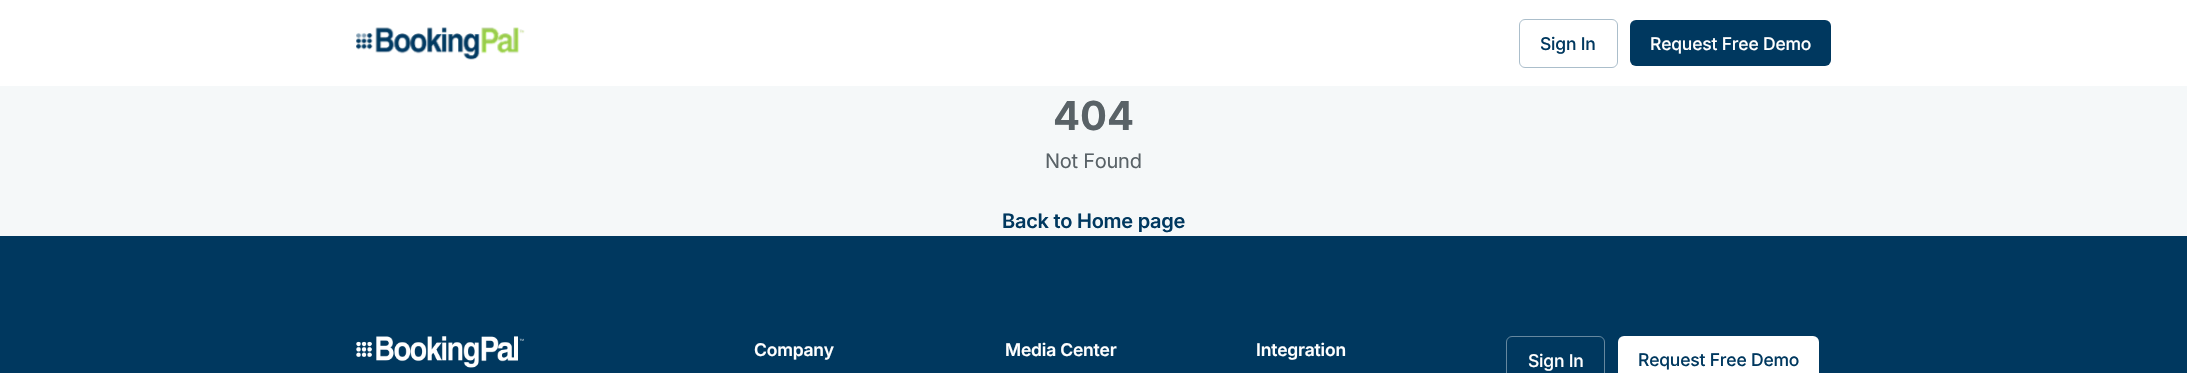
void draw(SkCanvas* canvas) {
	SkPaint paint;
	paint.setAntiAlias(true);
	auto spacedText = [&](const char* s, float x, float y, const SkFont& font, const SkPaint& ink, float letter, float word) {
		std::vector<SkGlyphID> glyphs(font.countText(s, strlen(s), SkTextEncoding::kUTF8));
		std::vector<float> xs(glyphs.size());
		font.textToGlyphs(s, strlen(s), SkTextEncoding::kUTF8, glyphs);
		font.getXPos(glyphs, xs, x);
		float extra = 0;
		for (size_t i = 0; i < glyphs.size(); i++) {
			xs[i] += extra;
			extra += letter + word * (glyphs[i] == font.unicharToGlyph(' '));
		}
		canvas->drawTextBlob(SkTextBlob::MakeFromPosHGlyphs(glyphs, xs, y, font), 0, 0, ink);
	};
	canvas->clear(0xffffffff);
	canvas->drawImageRect(SkImages::DeferredFromEncodedData(SkData::MakeFromFileName("img1.png")), SkRect::MakeXYWH(356, 27, 169, 33), SkSamplingOptions());
	paint.setStroke(true);
	paint.setStrokeWidth(1);
	paint.setColor(0xffabbecb);
	canvas->drawRoundRect(SkRect::MakeXYWH(1519.5, 19.5, 98, 48), 5.5, 5.5, paint);
	SkFont f1(fontMgr->matchFamilyStyle("Inter", SkFontStyle(500, SkFontStyle::kNormal_Width, SkFontStyle::kUpright_Slant)), 17.5);
	f1.setSubpixel(true);
	paint.setStroke(false);
	paint.setColor(0xff00385f);
	spacedText("Sign In", 1540, 50, f1, paint, -0.2, 0);
	canvas->drawRoundRect(SkRect::MakeXYWH(1630, 20, 201, 46), 6, 6, paint);
	paint.setColor(0xffffffff);
	spacedText("Request Free Demo", 1650, 50, f1, paint, -0.2, 0);
	paint.setColor(0xfff5f8f9);
	canvas->drawRect(SkRect::MakeXYWH(0, 86, 2187, 150), paint);
	SkFont f2(fontMgr->matchFamilyStyle("Inter", SkFontStyle::Bold()), 40);
	f2.setSubpixel(true);
	paint.setColor(0xff596267);
	canvas->drawString("404", 1053, 130, f2, paint);
	SkFont f3(fontMgr->matchFamilyStyle("Inter", SkFontStyle::Normal()), 20);
	f3.setSubpixel(true);
	spacedText("Not Found", 1045, 168, f3, paint, -0.25, 0);
	SkFont f4(fontMgr->matchFamilyStyle("Inter", SkFontStyle(600, SkFontStyle::kNormal_Width, SkFontStyle::kUpright_Slant)), 20);
	f4.setSubpixel(true);
	paint.setColor(0xff00385f);
	spacedText("Back to Home page", 1002, 228, f4, paint, -0.25, 0);
	canvas->drawRect(SkRect::MakeXYWH(0, 236, 2187, 137), paint);
	canvas->drawImageRect(SkImages::DeferredFromEncodedData(SkData::MakeFromFileName("img2.png")), SkRect::MakeXYWH(356, 336, 168, 32), SkSamplingOptions());
	SkFont f5(fontMgr->matchFamilyStyle("Inter", SkFontStyle(600, SkFontStyle::kNormal_Width, SkFontStyle::kUpright_Slant)), 17.5);
	f5.setSubpixel(true);
	paint.setColor(0xffffffff);
	spacedText("Company", 754, 356, f5, paint, -0.2, 0);
	spacedText("Media Center", 1005, 356, f5, paint, -0.2, 0);
	spacedText("Integration", 1256, 356, f5, paint, -0.2, 0);
	paint.setStroke(true);
	paint.setColor(0xff66889f);
	canvas->drawRoundRect(SkRect::MakeXYWH(1506.5, 336.5, 98, 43), 5.5, 5.5, paint);
	paint.setStroke(false);
	paint.setColor(0xffffffff);
	spacedText("Sign In", 1528, 367, f1, paint, -0.2, 0);
	canvas->drawRoundRect(SkRect::MakeXYWH(1618, 336, 201, 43), 6, 6, paint);
	paint.setColor(0xff00385f);
	spacedText("Request Free Demo", 1638, 366, f1, paint, -0.2, 0);
}
